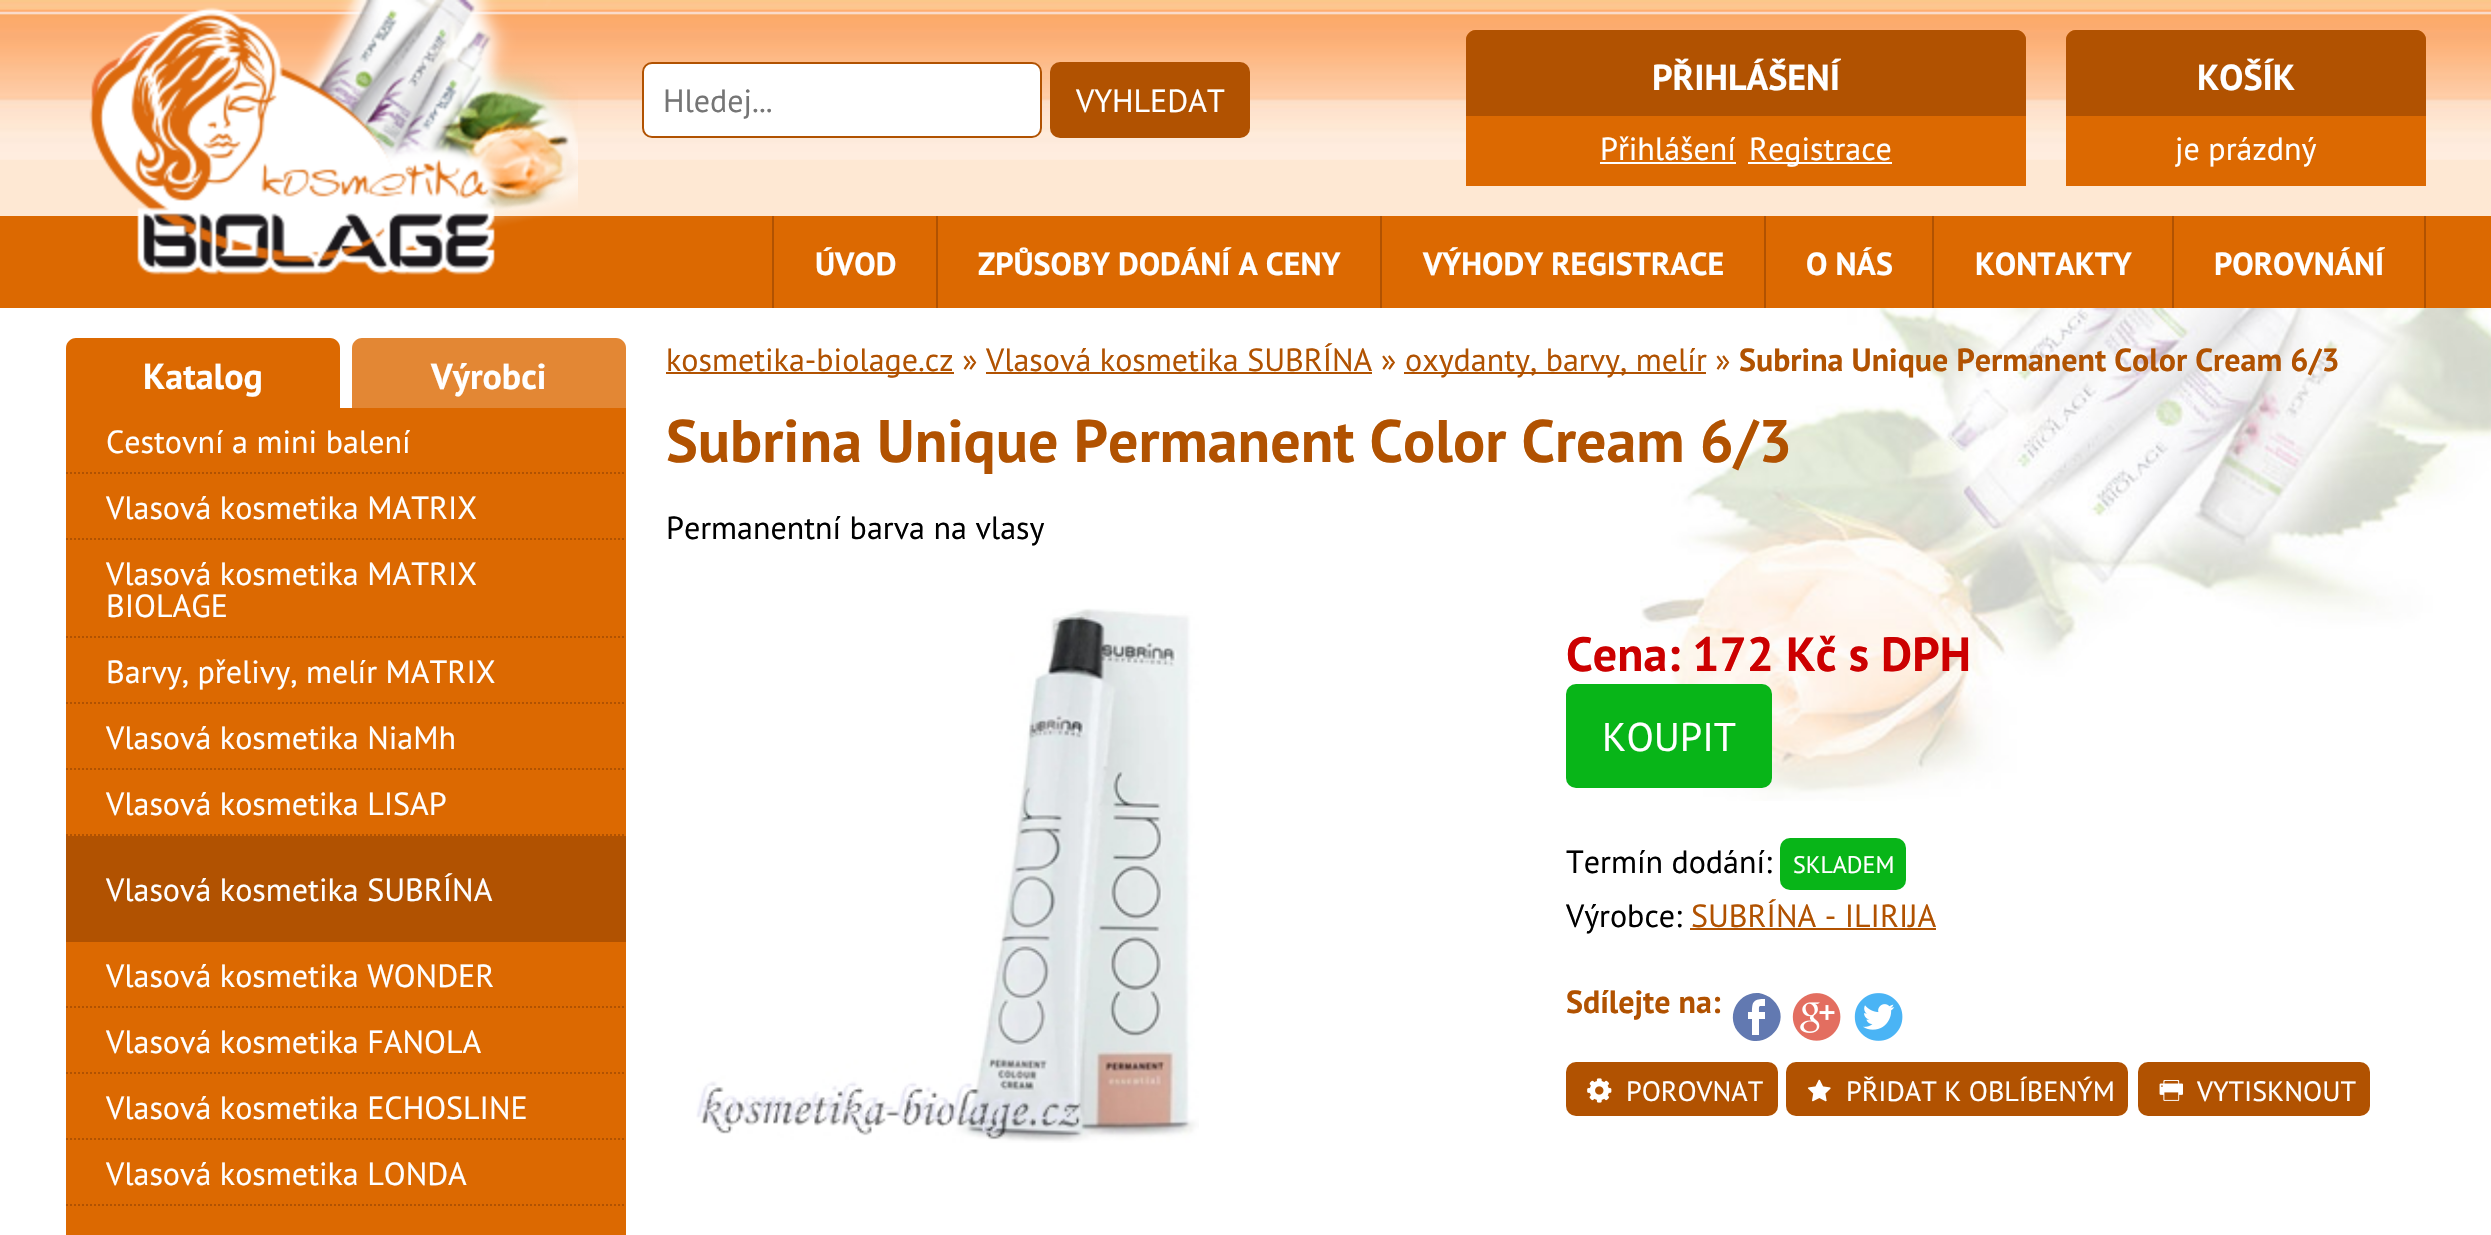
void draw(SkCanvas* canvas) {
	SkPaint paint;
	paint.setAntiAlias(true);
	auto svgPath = [&](const char* data, bool evenOdd = false) {
		SkPath result = *SkParsePath::FromSVGString(data);
		if (evenOdd) result.setFillType(SkPathFillType::kEvenOdd);
		return result;
	};
	canvas->clear(0xffffffff);
	paint.setColor(0xfffee8d3);
	canvas->drawRect(SkRect::MakeXYWH(0, 160, 2491, 56), paint);
	canvas->drawImageRect(SkImages::DeferredFromEncodedData(SkData::MakeFromFileName("img1.png")), SkRect::MakeXYWH(0, 0, 2491, 160), SkSamplingOptions());
	canvas->drawImageRect(SkImages::DeferredFromEncodedData(SkData::MakeFromFileName("img3.png")), SkRect::MakeXYWH(91, 31, 76, 152), SkSamplingOptions());
	paint.setColor(0xffdc6901);
	canvas->drawRect(SkRect::MakeXYWH(0, 216, 2491, 92), paint);
	canvas->drawImageRect(SkImages::DeferredFromEncodedData(SkData::MakeFromFileName("img2.png")), SkRect::MakeXYWH(89, 0, 489, 275), SkSamplingOptions());
	paint.setColor(0xffffffff);
	canvas->drawRoundRect(SkRect::MakeXYWH(643, 63, 398, 74), 9, 9, paint);
	paint.setStroke(true);
	paint.setStrokeWidth(2);
	paint.setColor(0xffb15201);
	canvas->drawRoundRect(SkRect::MakeXYWH(643, 63, 398, 74), 9, 9, paint);
	SkFont f1(fontMgr->matchFamilyStyle("PT Sans", SkFontStyle::Normal()), 32);
	f1.setSubpixel(true);
	paint.setStroke(false);
	paint.setColor(0xff757575);
	canvas->drawString("Hledej...", 663, 112, f1, paint);
	paint.setColor(0xffb15201);
	canvas->drawRoundRect(SkRect::MakeXYWH(1050, 62, 200, 76), 10, 10, paint);
	paint.setColor(0xffffffff);
	canvas->drawString("VYHLEDAT", 1076, 112, f1, paint);
	paint.setColor(0xffdc6901);
	canvas->drawPath(svgPath("M1476 30H2016C2021.5 30 2026 34.5 2026 40V186H1466V40C1466 34.5 1470.5 30 1476 30Z"), paint);
	paint.setColor(0xffb15201);
	canvas->drawPath(svgPath("M1476 30H2016C2021.5 30 2026 34.5 2026 40V116H1466V40C1466 34.5 1470.5 30 1476 30Z"), paint);
	SkFont f2(fontMgr->matchFamilyStyle("PT Sans", SkFontStyle::Bold()), 36);
	f2.setSubpixel(true);
	paint.setColor(0xffffffff);
	canvas->drawString("PŘIHLÁŠENÍ", 1652, 90, f2, paint);
	canvas->drawString("Přihlášení", 1600, 160, f1, paint);
	canvas->drawRect(SkRect::MakeXYWH(1600, 162, 136, 2), paint);
	canvas->drawRect(SkRect::MakeXYWH(1748, 162, 144, 2), paint);
	canvas->drawString("Registrace", 1749, 160, f1, paint);
	paint.setColor(0xffdc6901);
	canvas->drawPath(svgPath("M2076 30H2416C2421.5 30 2426 34.5 2426 40V186H2066V40C2066 34.5 2070.5 30 2076 30Z"), paint);
	paint.setColor(0xffb15201);
	canvas->drawPath(svgPath("M2076 30H2416C2421.5 30 2426 34.5 2426 40V116H2066V40C2066 34.5 2070.5 30 2076 30Z"), paint);
	paint.setColor(0xffffffff);
	canvas->drawString("KOŠÍK", 2197, 90, f2, paint);
	canvas->drawString("je prázdný", 2175, 160, f1, paint);
	paint.setColor(0xffb15201);
	canvas->drawRect(SkRect::MakeXYWH(936, 216, 2, 92), paint);
	canvas->drawRect(SkRect::MakeXYWH(772, 216, 2, 92), paint);
	SkFont f3(fontMgr->matchFamilyStyle("PT Sans", SkFontStyle::Bold()), 32);
	f3.setSubpixel(true);
	paint.setColor(0xffffffff);
	canvas->drawString("ÚVOD", 815, 275, f3, paint);
	paint.setColor(0xffb15201);
	canvas->drawRect(SkRect::MakeXYWH(1380, 216, 2, 92), paint);
	paint.setColor(0xffffffff);
	canvas->drawString("ZPŮSOBY DODÁNÍ A CENY", 978, 275, f3, paint);
	paint.setColor(0xffb15201);
	canvas->drawRect(SkRect::MakeXYWH(1764, 216, 2, 92), paint);
	paint.setColor(0xffffffff);
	canvas->drawString("VÝHODY REGISTRACE", 1423, 275, f3, paint);
	paint.setColor(0xffb15201);
	canvas->drawRect(SkRect::MakeXYWH(1932, 216, 2, 92), paint);
	paint.setColor(0xffffffff);
	canvas->drawString("O NÁS", 1806, 275, f3, paint);
	paint.setColor(0xffb15201);
	canvas->drawRect(SkRect::MakeXYWH(2172, 216, 2, 92), paint);
	paint.setColor(0xffffffff);
	canvas->drawString("KONTAKTY", 1975, 275, f3, paint);
	paint.setColor(0xffb15201);
	canvas->drawRect(SkRect::MakeXYWH(2424, 216, 2, 92), paint);
	paint.setColor(0xffffffff);
	canvas->drawString("POROVNÁNÍ", 2214, 275, f3, paint);
	canvas->drawImageRect(SkImages::DeferredFromEncodedData(SkData::MakeFromFileName("img4.png")), SkRect::MakeXYWH(1640, 308, 851, 493), SkSamplingOptions());
	paint.setColor(0xffdc6901);
	canvas->drawPath(svgPath("M76 338H330C335.5 338 340 342.5 340 348V408H66V348C66 342.5 70.5 338 76 338Z"), paint);
	paint.setColor(0xffffffff);
	canvas->drawString("Katalog", 143, 389, f2, paint);
	paint.setColor(0xffdc6901);
	canvas->drawRect(SkRect::MakeXYWH(66, 408, 560, 827), paint);
	paint.setStroke(true);
	paint.setColor(0xffb15201);
	paint.setPathEffect(SkDashPathEffect::Make({{2, 2}}, 0));
	canvas->drawPath(svgPath("M66 473H626"), paint);
	paint.setPathEffect(nullptr);
	paint.setStroke(false);
	paint.setColor(0xffffffff);
	canvas->drawString("Cestovní a mini balení", 106, 453, f1, paint);
	paint.setStroke(true);
	paint.setColor(0xffb15201);
	paint.setPathEffect(SkDashPathEffect::Make({{2, 2}}, 0));
	canvas->drawPath(svgPath("M66 539H626"), paint);
	paint.setPathEffect(nullptr);
	paint.setStroke(false);
	paint.setColor(0xffffffff);
	canvas->drawString("Vlasová kosmetika MATRIX", 106, 519, f1, paint);
	paint.setStroke(true);
	paint.setColor(0xffb15201);
	paint.setPathEffect(SkDashPathEffect::Make({{2, 2}}, 0));
	canvas->drawPath(svgPath("M66 637H626"), paint);
	paint.setPathEffect(nullptr);
	paint.setStroke(false);
	paint.setColor(0xffffffff);
	canvas->drawString("Vlasová kosmetika MATRIX", 106, 585, f1, paint);
	canvas->drawString("BIOLAGE", 106, 617, f1, paint);
	paint.setStroke(true);
	paint.setColor(0xffb15201);
	paint.setPathEffect(SkDashPathEffect::Make({{2, 2}}, 0));
	canvas->drawPath(svgPath("M66 703H626"), paint);
	paint.setPathEffect(nullptr);
	paint.setStroke(false);
	paint.setColor(0xffffffff);
	canvas->drawString("Barvy, přelivy, melír MATRIX", 106, 683, f1, paint);
	paint.setStroke(true);
	paint.setColor(0xffb15201);
	paint.setPathEffect(SkDashPathEffect::Make({{2, 2}}, 0));
	canvas->drawPath(svgPath("M66 769H626"), paint);
	paint.setPathEffect(nullptr);
	paint.setStroke(false);
	paint.setColor(0xffffffff);
	canvas->drawString("Vlasová kosmetika NiaMh", 106, 749, f1, paint);
	paint.setStroke(true);
	paint.setColor(0xffb15201);
	paint.setPathEffect(SkDashPathEffect::Make({{2, 2}}, 0));
	canvas->drawPath(svgPath("M66 835H626"), paint);
	paint.setPathEffect(nullptr);
	paint.setStroke(false);
	paint.setColor(0xffffffff);
	canvas->drawString("Vlasová kosmetika LISAP", 106, 815, f1, paint);
	paint.setColor(0xffb15201);
	canvas->drawRect(SkRect::MakeXYWH(66, 836, 560, 106), paint);
	paint.setColor(0xffffffff);
	canvas->drawString("Vlasová kosmetika SUBRÍNA", 106, 901, f1, paint);
	paint.setStroke(true);
	paint.setColor(0xffb15201);
	paint.setPathEffect(SkDashPathEffect::Make({{2, 2}}, 0));
	canvas->drawPath(svgPath("M66 1007H626"), paint);
	paint.setPathEffect(nullptr);
	paint.setStroke(false);
	paint.setColor(0xffffffff);
	canvas->drawString("Vlasová kosmetika WONDER", 106, 987, f1, paint);
	paint.setStroke(true);
	paint.setColor(0xffb15201);
	paint.setPathEffect(SkDashPathEffect::Make({{2, 2}}, 0));
	canvas->drawPath(svgPath("M66 1073H626"), paint);
	paint.setPathEffect(nullptr);
	paint.setStroke(false);
	paint.setColor(0xffffffff);
	canvas->drawString("Vlasová kosmetika FANOLA", 106, 1053, f1, paint);
	paint.setStroke(true);
	paint.setColor(0xffb15201);
	paint.setPathEffect(SkDashPathEffect::Make({{2, 2}}, 0));
	canvas->drawPath(svgPath("M66 1139H626"), paint);
	paint.setPathEffect(nullptr);
	paint.setStroke(false);
	paint.setColor(0xffffffff);
	canvas->drawString("Vlasová kosmetika ECHOSLINE", 106, 1119, f1, paint);
	paint.setStroke(true);
	paint.setColor(0xffb15201);
	paint.setPathEffect(SkDashPathEffect::Make({{2, 2}}, 0));
	canvas->drawPath(svgPath("M66 1205H626"), paint);
	paint.setPathEffect(nullptr);
	paint.setStroke(false);
	paint.setColor(0xffffffff);
	canvas->drawString("Vlasová kosmetika LONDA", 106, 1185, f1, paint);
	paint.setColor(0xffe38734);
	canvas->drawPath(svgPath("M362 338H616C621.5 338 626 342.5 626 348V408H352V348C352 342.5 356.5 338 362 338Z"), paint);
	paint.setColor(0xffffffff);
	canvas->drawString("Výrobci", 431, 389, f2, paint);
	paint.setColor(0xffb15201);
	canvas->drawRect(SkRect::MakeXYWH(666, 372, 288, 2), paint);
	canvas->drawString("kosmetika-biolage.cz » Vlasová kosmetika SUBRÍNA »", 666, 371, f1, paint);
	canvas->drawRect(SkRect::MakeXYWH(1404, 372, 302, 2), paint);
	canvas->drawString("oxydanty, barvy, melír »", 1405, 371, f1, paint);
	canvas->drawString("Subrina Unique Permanent Color Cream 6/3", 1739, 371, f3, paint);
	canvas->drawRect(SkRect::MakeXYWH(986, 372, 386, 2), paint);
	SkFont f4(fontMgr->matchFamilyStyle("PT Sans", SkFontStyle::Bold()), 60);
	f4.setSubpixel(true);
	canvas->drawString("Subrina Unique Permanent Color Cream 6/3", 666, 462, f4, paint);
	paint.setColor(0xff000000);
	canvas->drawString("Permanentní barva na vlasy", 666, 539, f1, paint);
	canvas->drawImageRect(SkImages::DeferredFromEncodedData(SkData::MakeFromFileName("img5.png")), SkRect::MakeXYWH(696, 608, 503, 535), SkSamplingOptions());
	SkFont f5(fontMgr->matchFamilyStyle("PT Sans", SkFontStyle::Bold()), 48);
	f5.setSubpixel(true);
	paint.setColor(0xffcc0000);
	canvas->drawString("Cena: 172 Kč s DPH", 1566, 671, f5, paint);
	paint.setColor(0xff08b518);
	canvas->drawRoundRect(SkRect::MakeXYWH(1566, 684, 206, 104), 10, 10, paint);
	SkFont f6(fontMgr->matchFamilyStyle("PT Sans", SkFontStyle::Normal()), 40);
	f6.setSubpixel(true);
	paint.setColor(0xffffffff);
	canvas->drawString("KOUPIT", 1602, 751, f6, paint);
	paint.setColor(0xff000000);
	canvas->drawString("Termín dodání:", 1566, 873, f1, paint);
	paint.setColor(0xff08b518);
	canvas->drawRoundRect(SkRect::MakeXYWH(1780, 838, 126, 52), 10, 10, paint);
	SkFont f7(fontMgr->matchFamilyStyle("PT Sans", SkFontStyle::Normal()), 24);
	f7.setSubpixel(true);
	paint.setColor(0xffffffff);
	canvas->drawString("SKLADEM", 1793, 873, f7, paint);
	paint.setColor(0xff000000);
	canvas->drawString("Výrobce:", 1566, 927, f1, paint);
	paint.setColor(0xffb15201);
	canvas->drawString("SUBRÍNA - ILIRIJA", 1691, 927, f1, paint);
	canvas->drawRect(SkRect::MakeXYWH(1690, 928, 246, 2), paint);
	canvas->drawString("Sdílejte na:", 1566, 1013, f3, paint);
	paint.setColor(0xff6279b1);
	canvas->drawPath(svgPath("M1773 1000C1769 996 1764 994 1759 993C1737 991 1724 1018 1740 1034C1762 1056 1796 1022 1773 1000ZM1765 1006C1758 1006 1759 1005 1759 1012H1765V1019H1759V1035H1752V1019H1748V1012H1752C1752 1001 1754 999 1765 999Z"), paint);
	canvas->drawImageRect(SkImages::DeferredFromEncodedData(SkData::MakeFromFileName("img6.png")), SkRect::MakeXYWH(1792, 993, 49, 48), SkSamplingOptions());
	canvas->drawImageRect(SkImages::DeferredFromEncodedData(SkData::MakeFromFileName("img7.png")), SkRect::MakeXYWH(1854, 993, 49, 48), SkSamplingOptions());
	paint.setColor(0xffb15201);
	canvas->drawRoundRect(SkRect::MakeXYWH(1566, 1062, 212, 54), 10, 10, paint);
	canvas->drawImageRect(SkImages::DeferredFromEncodedData(SkData::MakeFromFileName("img8.png")), SkRect::MakeXYWH(1587, 1078, 25, 25), SkSamplingOptions());
	SkFont f8(fontMgr->matchFamilyStyle("PT Sans", SkFontStyle::Normal()), 28);
	f8.setSubpixel(true);
	paint.setColor(0xffffffff);
	canvas->drawString("POROVNAT", 1626, 1101, f8, paint);
	paint.setColor(0xffb15201);
	canvas->drawRoundRect(SkRect::MakeXYWH(1786, 1062, 342, 54), 10, 10, paint);
	canvas->drawImageRect(SkImages::DeferredFromEncodedData(SkData::MakeFromFileName("img9.png")), SkRect::MakeXYWH(1807, 1079, 24, 23), SkSamplingOptions());
	paint.setColor(0xffffffff);
	canvas->drawString("PŘIDAT K OBLÍBENÝM", 1846, 1101, f8, paint);
	paint.setColor(0xffb15201);
	canvas->drawRoundRect(SkRect::MakeXYWH(2138, 1062, 232, 54), 10, 10, paint);
	canvas->drawImageRect(SkImages::DeferredFromEncodedData(SkData::MakeFromFileName("img10.png")), SkRect::MakeXYWH(2159, 1080, 24, 21), SkSamplingOptions());
	paint.setColor(0xffffffff);
	canvas->drawString("VYTISKNOUT", 2197, 1101, f8, paint);
}
